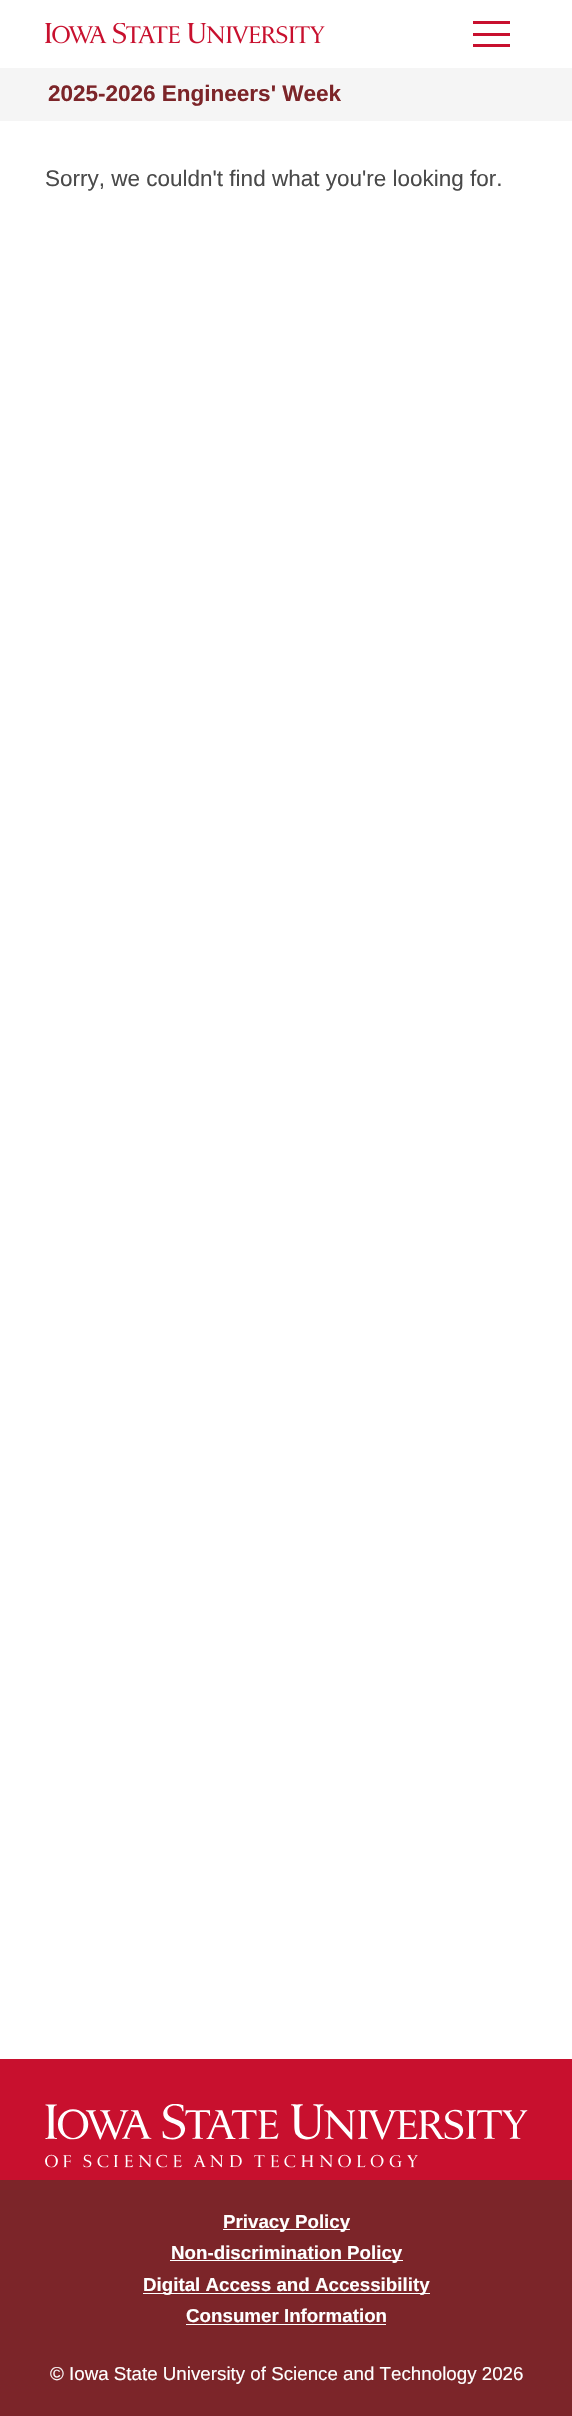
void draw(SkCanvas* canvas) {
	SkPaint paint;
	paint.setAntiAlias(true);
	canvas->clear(0xffffffff);
	paint.setColor(0xffc8102e);
	canvas->drawRect(SkRect::MakeXYWH(473, 21, 37, 3), paint);
	canvas->drawRect(SkRect::MakeXYWH(473, 33, 37, 3), paint);
	canvas->drawRect(SkRect::MakeXYWH(473, 44, 37, 3), paint);
	canvas->drawImageRect(SkImages::DeferredFromEncodedData(SkData::MakeFromFileName("img1.png")), SkRect::MakeXYWH(45, 23, 280, 21), SkSamplingOptions());
	paint.setColor(0xfff5f5f5);
	canvas->drawRect(SkRect::MakeXYWH(0, 68, 572, 53), paint);
	SkFont f1(fontMgr->matchFamilyStyle("Liberation Sans", SkFontStyle::Bold()), 22.5);
	f1.setSubpixel(true);
	paint.setColor(0xff7c2529);
	canvas->drawString("2025-2026 Engineers' Week", 48, 101, f1, paint);
	SkFont f2(fontMgr->matchFamilyStyle("Liberation Sans", SkFontStyle::Normal()), 22.5);
	f2.setSubpixel(true);
	paint.setColor(0xff4a4a4a);
	canvas->drawString("Sorry, we couldn't find what you're looking for.", 45, 186, f2, paint);
	paint.setColor(0xffc8102e);
	canvas->drawRect(SkRect::MakeXYWH(0, 2059, 572, 121), paint);
	canvas->drawImageRect(SkImages::DeferredFromEncodedData(SkData::MakeFromFileName("img2.png")), SkRect::MakeXYWH(45, 2104, 483, 64), SkSamplingOptions());
	paint.setColor(0xff7c2529);
	canvas->drawRect(SkRect::MakeXYWH(0, 2180, 572, 236), paint);
	paint.setColor(0xffffffff);
	canvas->drawRect(SkRect::MakeXYWH(223, 2229, 127, 1), paint);
	SkFont f3(fontMgr->matchFamilyStyle("Liberation Sans", SkFontStyle::Bold()), 18.75);
	f3.setSubpixel(true);
	canvas->drawString("Privacy Policy", 223, 2228, f3, paint);
	canvas->drawRect(SkRect::MakeXYWH(170, 2260, 233, 1), paint);
	canvas->drawString("Non-discrimination Policy", 171, 2259, f3, paint);
	canvas->drawRect(SkRect::MakeXYWH(143, 2293, 287, 1), paint);
	canvas->drawString("Digital Access and Accessibility", 143, 2291, f3, paint);
	canvas->drawString("Consumer Information", 186, 2322, f3, paint);
	canvas->drawRect(SkRect::MakeXYWH(186, 2324, 200, 1), paint);
	SkFont f4(fontMgr->matchFamilyStyle("Liberation Sans", SkFontStyle::Normal()), 18.75);
	f4.setSubpixel(true);
	canvas->drawString("© Iowa State University of Science and Technology 2026", 50, 2380, f4, paint);
}
